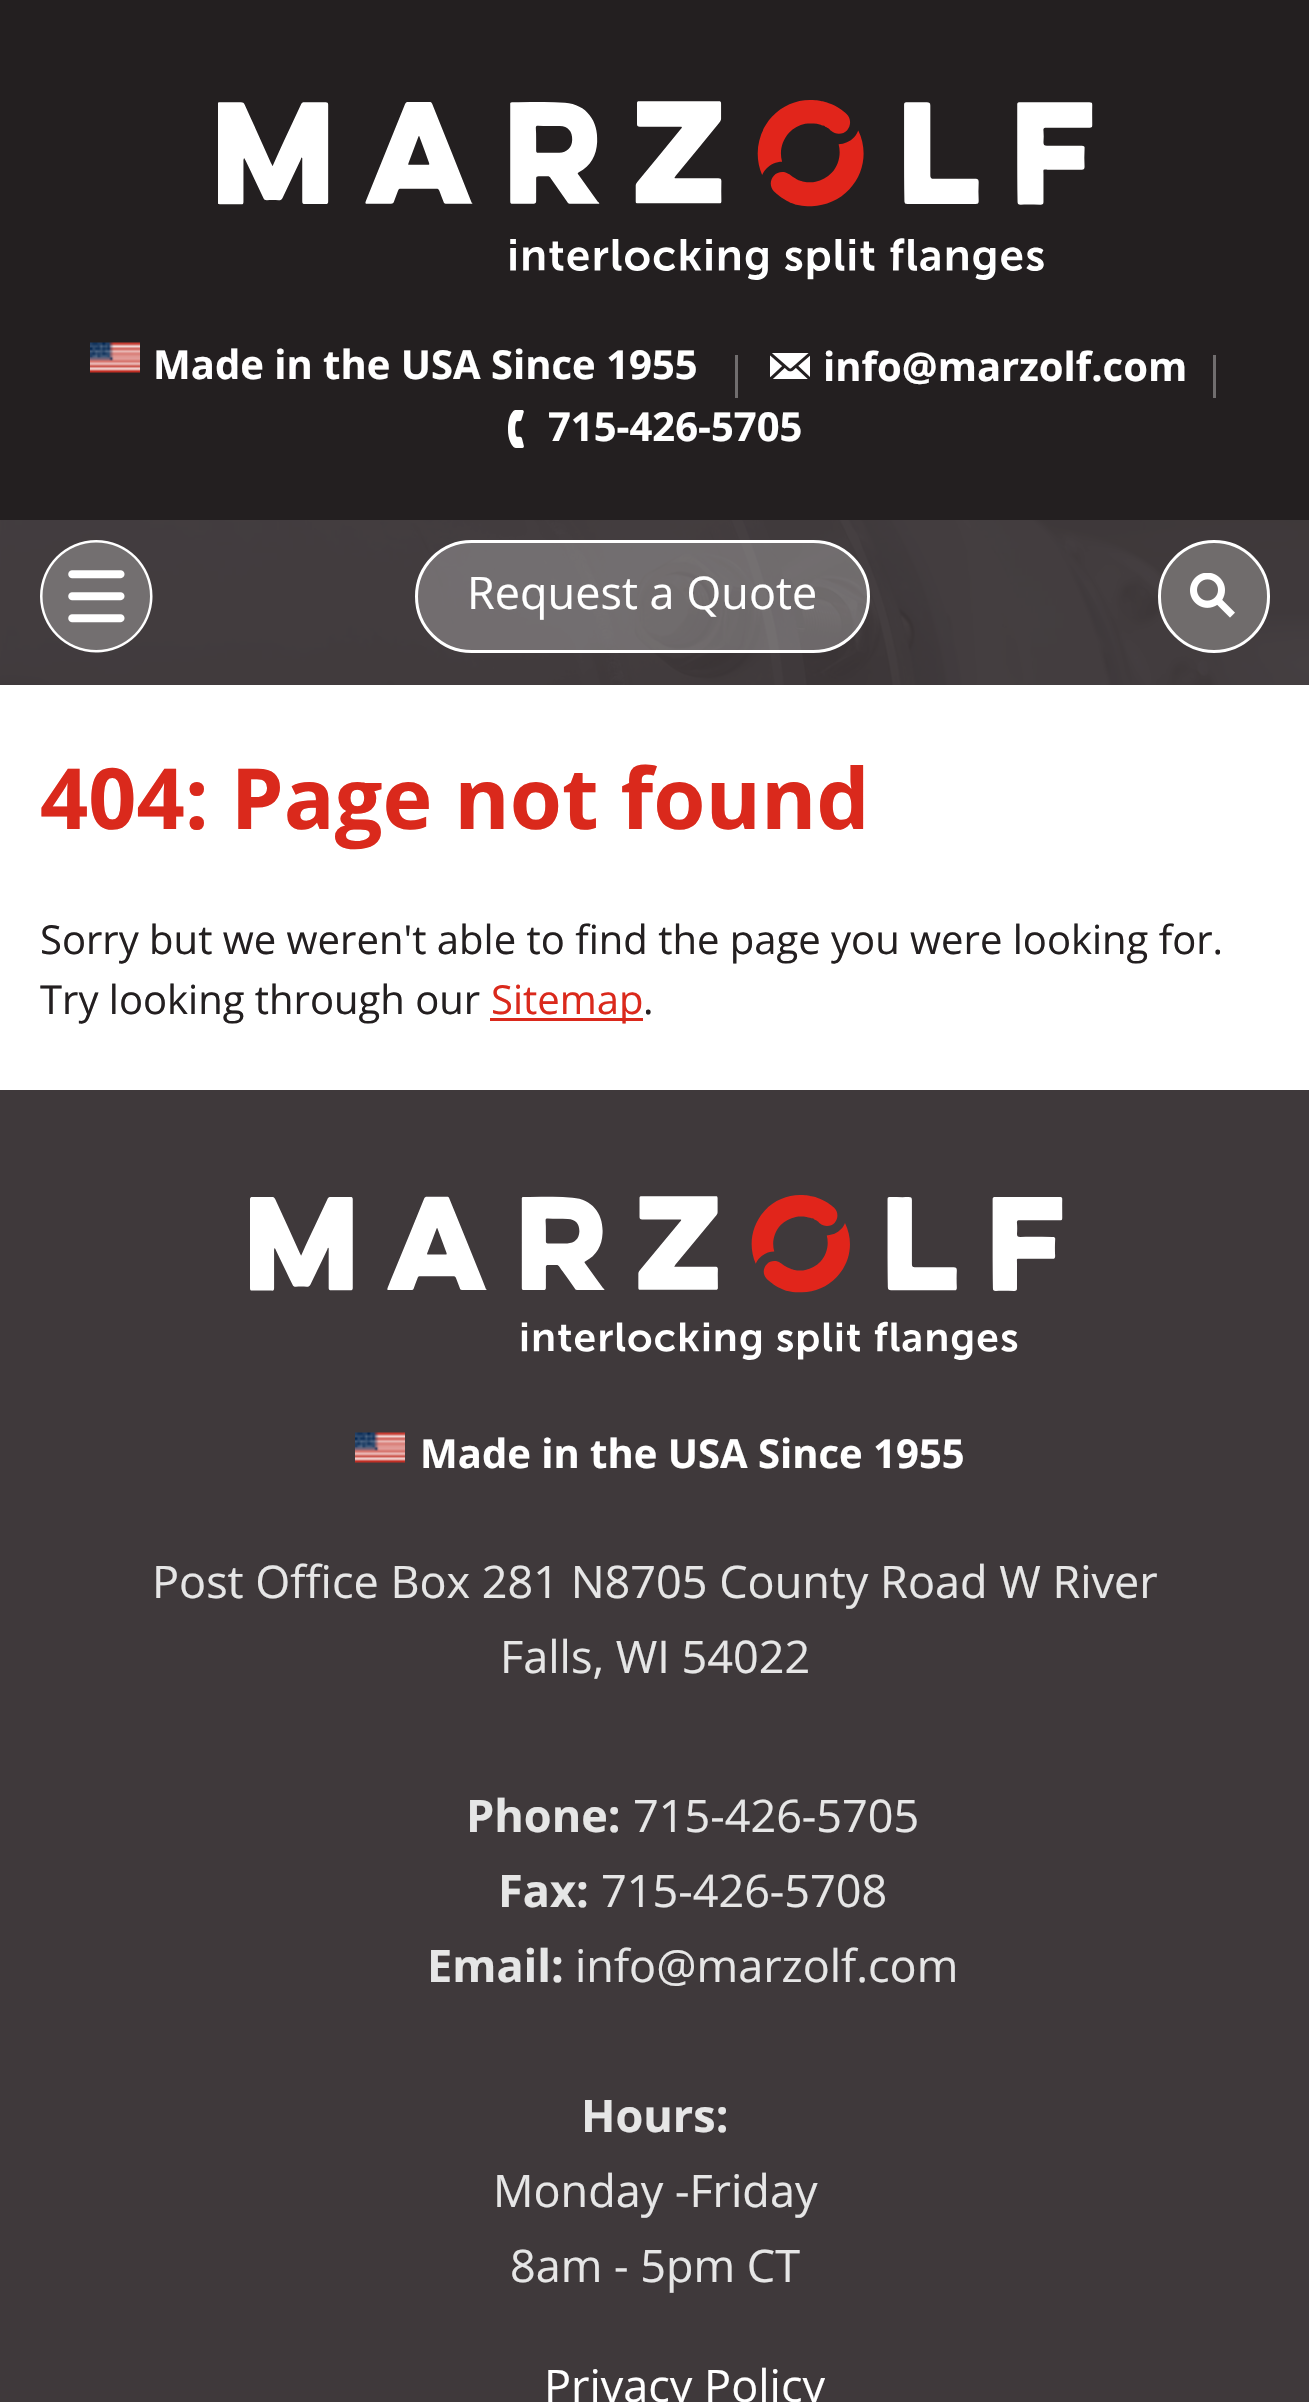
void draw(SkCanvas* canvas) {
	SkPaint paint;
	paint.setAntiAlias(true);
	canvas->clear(0xffffffff);
	canvas->drawImageRect(SkImages::DeferredFromEncodedData(SkData::MakeFromFileName("img1.png")), SkRect::MakeXYWH(0, 520, 1309, 165), SkSamplingOptions());
	paint.setColor(0xff231f20);
	canvas->drawRect(SkRect::MakeXYWH(0, 0, 1309, 520), paint);
	canvas->drawImageRect(SkImages::DeferredFromEncodedData(SkData::MakeFromFileName("img2.png")), SkRect::MakeXYWH(218, 100, 875, 180), SkSamplingOptions());
	canvas->drawImageRect(SkImages::DeferredFromEncodedData(SkData::MakeFromFileName("img3.png")), SkRect::MakeXYWH(90, 342, 50, 31), SkSamplingOptions());
	SkFont f1(fontMgr->matchFamilyStyle("Open Sans", SkFontStyle::Bold()), 40);
	f1.setSubpixel(true);
	paint.setColor(0xffffffff);
	canvas->drawString("Made in the USA Since 1955", 153, 379, f1, paint);
	canvas->drawImageRect(SkImages::DeferredFromEncodedData(SkData::MakeFromFileName("img4.png")), SkRect::MakeXYWH(770, 353, 40, 26), SkSamplingOptions());
	canvas->drawString("info@marzolf.com", 823, 381, f1, paint);
	paint.setColor(0xff706d6e);
	canvas->drawRect(SkRect::MakeXYWH(1213, 355, 3, 43), paint);
	canvas->drawRect(SkRect::MakeXYWH(735, 355, 3, 43), paint);
	canvas->drawImageRect(SkImages::DeferredFromEncodedData(SkData::MakeFromFileName("img5.png")), SkRect::MakeXYWH(508, 410, 16, 38), SkSamplingOptions());
	paint.setColor(0xffffffff);
	canvas->drawString("715-426-5705", 548, 441, f1, paint);
	paint.setColor(0xf23b3537);
	canvas->drawRect(SkRect::MakeXYWH(0, 520, 1309, 165), paint);
	canvas->drawImageRect(SkImages::DeferredFromEncodedData(SkData::MakeFromFileName("img6.png")), SkRect::MakeXYWH(40, 540, 113, 113), SkSamplingOptions());
	paint.setColor(0x40ffffff);
	canvas->drawRoundRect(SkRect::MakeXYWH(416.5, 541.5, 452, 110), 55, 55, paint);
	paint.setStroke(true);
	paint.setStrokeWidth(3);
	paint.setColor(0xffffffff);
	canvas->drawRoundRect(SkRect::MakeXYWH(416.5, 541.5, 452, 110), 55, 55, paint);
	SkFont f2(fontMgr->matchFamilyStyle("Open Sans", SkFontStyle::Normal()), 45);
	f2.setSubpixel(true);
	paint.setStroke(false);
	canvas->drawString("Request a Quote", 467, 609, f2, paint);
	paint.setColor(0xff706c6c);
	canvas->drawRoundRect(SkRect::MakeXYWH(1159.5, 541.5, 109, 110), 54.5, 54.5, paint);
	paint.setStroke(true);
	paint.setColor(0xffffffff);
	canvas->drawRoundRect(SkRect::MakeXYWH(1159.5, 541.5, 109, 110), 54.5, 54.5, paint);
	canvas->drawImageRect(SkImages::DeferredFromEncodedData(SkData::MakeFromFileName("img7.png")), SkRect::MakeXYWH(1190, 573, 45, 45), SkSamplingOptions());
	SkFont f3(fontMgr->matchFamilyStyle("Open Sans", SkFontStyle::Bold()), 84.4);
	f3.setSubpixel(true);
	paint.setStroke(false);
	paint.setColor(0xffda291c);
	canvas->drawString("404: Page not found", 40, 829, f3, paint);
	SkFont f4(fontMgr->matchFamilyStyle("Open Sans", SkFontStyle::Normal()), 40);
	f4.setSubpixel(true);
	paint.setColor(0xff231f20);
	canvas->drawString("Sorry but we weren't able to find the page you were looking for.", 40, 954, f4, paint);
	canvas->drawString("Try looking through our", 40, 1014, f4, paint);
	paint.setColor(0xffda291c);
	canvas->drawRect(SkRect::MakeXYWH(490, 1018, 153, 3), paint);
	canvas->drawString("Sitemap", 491, 1014, f4, paint);
	paint.setColor(0xff231f20);
	canvas->drawString(".", 643, 1014, f4, paint);
	paint.setColor(0xff3f393b);
	canvas->drawRect(SkRect::MakeXYWH(0, 1090, 1309, 1312), paint);
	canvas->drawImageRect(SkImages::DeferredFromEncodedData(SkData::MakeFromFileName("img8.png")), SkRect::MakeXYWH(250, 1195, 813, 165), SkSamplingOptions());
	canvas->drawImageRect(SkImages::DeferredFromEncodedData(SkData::MakeFromFileName("img9.png")), SkRect::MakeXYWH(355, 1432, 50, 31), SkSamplingOptions());
	paint.setColor(0xffffffff);
	canvas->drawString("Made in the USA Since 1955", 420, 1468, f1, paint);
	paint.setColor(0xffe6e6e6);
	canvas->drawString("Post Office Box 281 N8705 County Road W River", 152, 1598, f2, paint);
	canvas->drawString("Falls, WI 54022", 500, 1673, f2, paint);
	SkFont f5(fontMgr->matchFamilyStyle("Open Sans", SkFontStyle::Bold()), 45);
	f5.setSubpixel(true);
	canvas->drawString("Phone:", 466, 1832, f5, paint);
	canvas->drawString("715-426-5705", 633, 1832, f2, paint);
	canvas->drawString("Fax:", 498, 1907, f5, paint);
	canvas->drawString("715-426-5708", 601, 1907, f2, paint);
	canvas->drawString("Email:", 427, 1982, f5, paint);
	canvas->drawString("info@marzolf.com", 575, 1982, f2, paint);
	canvas->drawString("Hours:", 581, 2132, f5, paint);
	canvas->drawString("Monday -Friday", 493, 2207, f2, paint);
	canvas->drawString("8am - 5pm CT", 510, 2282, f2, paint);
	paint.setColor(0xffffffff);
	canvas->drawString("Privacy Policy", 544, 2402, f2, paint);
}
